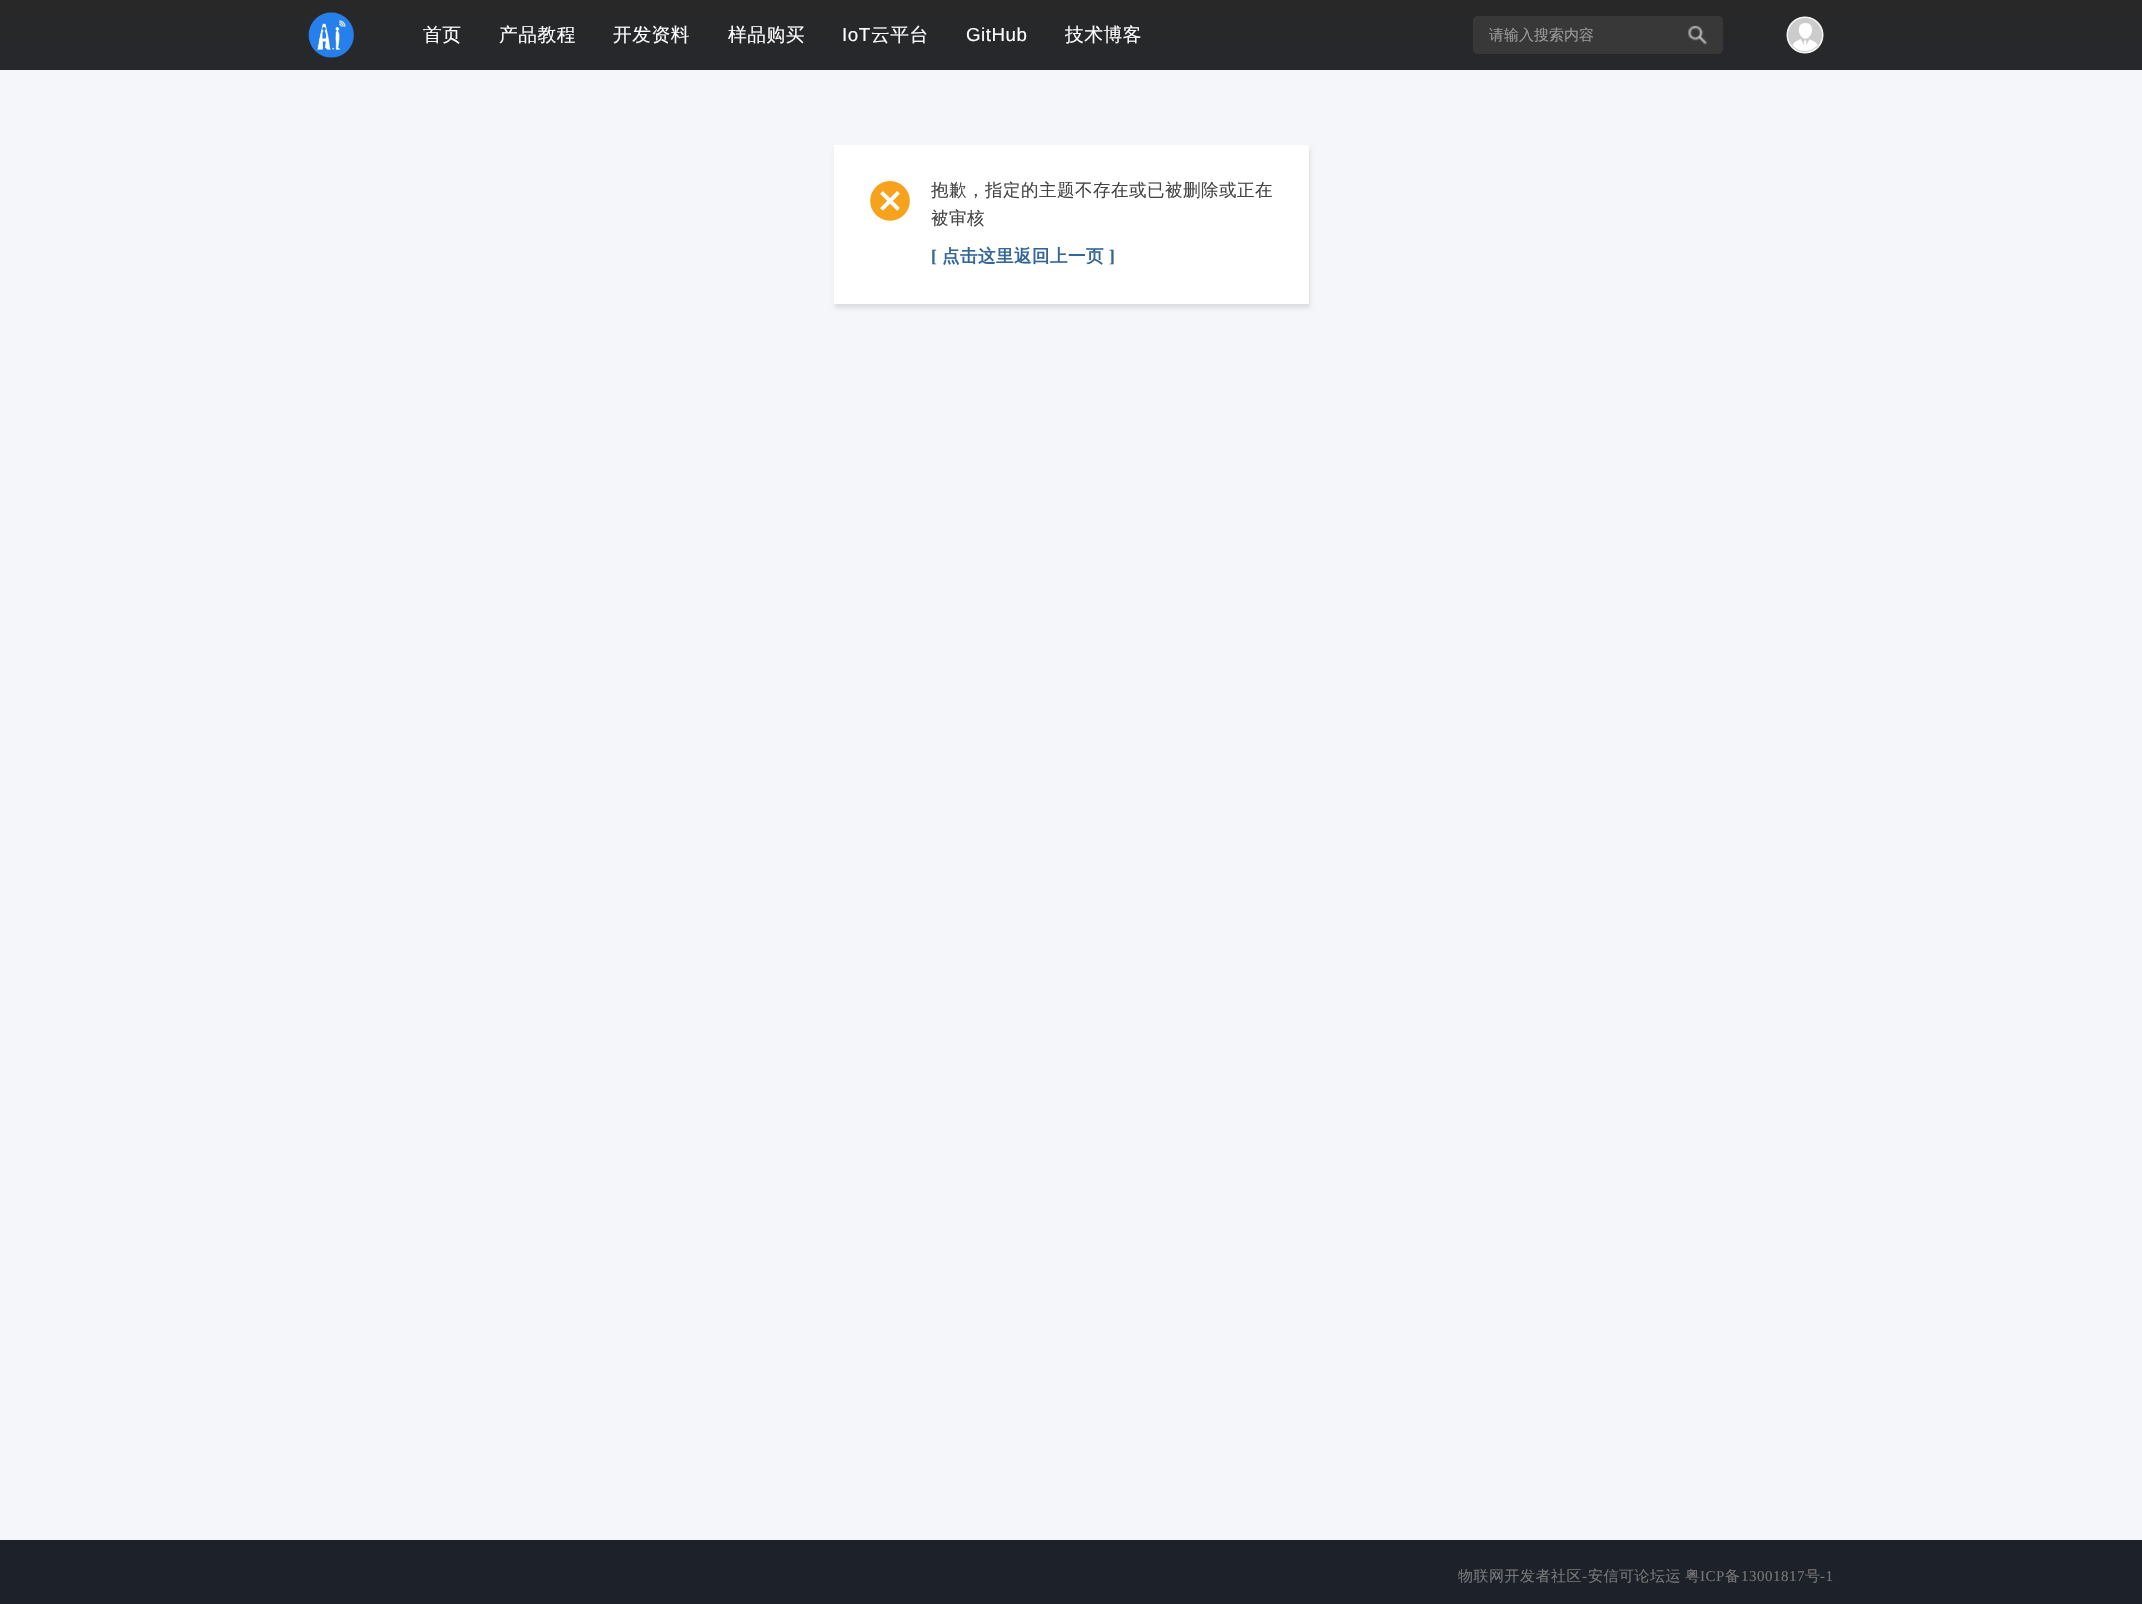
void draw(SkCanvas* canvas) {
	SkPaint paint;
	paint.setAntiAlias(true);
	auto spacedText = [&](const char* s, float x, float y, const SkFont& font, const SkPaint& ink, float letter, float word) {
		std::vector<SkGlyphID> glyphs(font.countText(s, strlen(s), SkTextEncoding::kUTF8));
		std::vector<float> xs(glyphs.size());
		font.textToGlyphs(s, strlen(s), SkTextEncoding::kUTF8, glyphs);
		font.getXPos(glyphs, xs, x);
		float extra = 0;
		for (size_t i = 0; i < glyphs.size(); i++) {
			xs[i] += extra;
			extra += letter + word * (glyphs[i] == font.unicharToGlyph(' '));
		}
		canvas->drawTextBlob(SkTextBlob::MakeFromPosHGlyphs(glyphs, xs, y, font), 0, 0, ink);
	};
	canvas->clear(0xfff5f6f9);
	{
		const SkColor colors[] = {0xff282828, 0xff26282c};
		const float stops[] = {0, 1};
		const SkPoint ends[] = {{1071, 0}, {1071, 70}};
		paint.setShader(SkGradientShader::MakeLinear(ends, colors, stops, 2, SkTileMode::kClamp));
		paint.setAlpha(255);
	}
	canvas->drawRect(SkRect::MakeXYWH(0, 0, 2142, 70), paint);
	canvas->drawImageRect(SkImages::DeferredFromEncodedData(SkData::MakeFromFileName("img1.png")), SkRect::MakeXYWH(308, 12, 46, 46), SkSamplingOptions());
	SkFont f1(fontMgr->matchFamilyStyle("WenQuanYi Zen Hei", SkFontStyle(500, SkFontStyle::kNormal_Width, SkFontStyle::kUpright_Slant)), 18.75);
	f1.setSubpixel(true);
	paint.setShader(nullptr);
	paint.setColor(0xffffffff);
	spacedText("首页", 423, 41, f1, paint, 0.5, 0);
	spacedText("产品教程", 499, 41, f1, paint, 0.5, 0);
	spacedText("开发资料", 613, 41, f1, paint, 0.5, 0);
	spacedText("样品购买", 728, 41, f1, paint, 0.5, 0);
	SkFont f2(fontMgr->matchFamilyStyle("Liberation Sans", SkFontStyle::Normal()), 18.75);
	f2.setSubpixel(true);
	spacedText("IoT", 842, 41, f2, paint, 0.5, 0);
	spacedText("云平台", 871, 41, f1, paint, 0.5, 0);
	spacedText("GitHub", 966, 41, f2, paint, 0.5, 0);
	spacedText("技术博客", 1065, 41, f1, paint, 0.5, 0);
	paint.setColor(0xff383838);
	canvas->drawRoundRect(SkRect::MakeXYWH(1473, 16, 250, 38), 5, 5, paint);
	SkFont f3(fontMgr->matchFamilyStyle("WenQuanYi Zen Hei", SkFontStyle(500, SkFontStyle::kNormal_Width, SkFontStyle::kUpright_Slant)), 15);
	f3.setSubpixel(true);
	paint.setColor(0xff999999);
	canvas->drawString("请输入搜索内容", 1489, 40, f3, paint);
	canvas->drawImageRect(SkImages::DeferredFromEncodedData(SkData::MakeFromFileName("img2.png")), SkRect::MakeXYWH(1687, 25, 20, 20), SkSamplingOptions());
	canvas->drawImageRect(SkImages::DeferredFromEncodedData(SkData::MakeFromFileName("img3.png")), SkRect::MakeXYWH(1786, 16, 38, 38), SkSamplingOptions());
	paint.setColor(0x1a000000);
	paint.setMaskFilter(SkMaskFilter::MakeBlur(kNormal_SkBlurStyle, 2));
	canvas->drawRect(SkRect::MakeXYWH(835, 149, 475, 159), paint);
	paint.setMaskFilter(nullptr);
	paint.setColor(0xffffffff);
	canvas->drawRect(SkRect::MakeXYWH(834, 145, 475, 159), paint);
	canvas->drawImageRect(SkImages::DeferredFromEncodedData(SkData::MakeFromFileName("img4.png")), SkRect::MakeXYWH(870, 181, 40, 40), SkSamplingOptions());
	SkFont f4(fontMgr->matchFamilyStyle("WenQuanYi Zen Hei", SkFontStyle(500, SkFontStyle::kNormal_Width, SkFontStyle::kUpright_Slant)), 17.5);
	f4.setSubpixel(true);
	paint.setColor(0xff444444);
	spacedText("抱歉，指定的主题不存在或已被删除或正在", 931, 196, f4, paint, 0.5, 0);
	spacedText("被审核", 931, 224, f4, paint, 0.5, 0);
	SkFont f5(fontMgr->matchFamilyStyle("Liberation Serif", SkFontStyle::Bold()), 17.5);
	f5.setSubpixel(true);
	paint.setColor(0xff336699);
	spacedText("[", 931, 262, f5, paint, 0.5, 0);
	SkFont f6(fontMgr->matchFamilyStyle("WenQuanYi Zen Hei", SkFontStyle::Bold()), 17.5);
	f6.setSubpixel(true);
	spacedText("点击这里返回上一页", 942, 262, f6, paint, 0.5, 0);
	spacedText("]", 1109, 262, f5, paint, 0.5, 0);
	paint.setColor(0xff1d2129);
	canvas->drawRect(SkRect::MakeXYWH(0, 1540, 2142, 64), paint);
	paint.setColor(0xff777777);
	spacedText("物联网开发者社区", 1458, 1581, f3, paint, 0.5, 0);
	SkFont f7(fontMgr->matchFamilyStyle("Liberation Serif", SkFontStyle::Normal()), 15);
	f7.setSubpixel(true);
	spacedText("-", 1582, 1581, f7, paint, 0.5, 0);
	spacedText("安信可论坛运", 1588, 1581, f3, paint, 0.5, 0);
	spacedText("粤", 1685, 1581, f3, paint, 0.5, 0);
	spacedText("ICP", 1700, 1581, f7, paint, 0.5, 0);
	spacedText("备", 1725, 1581, f3, paint, 0.5, 0);
	spacedText("13001817", 1741, 1581, f7, paint, 0.5, 0);
	spacedText("号", 1805, 1581, f3, paint, 0.5, 0);
	spacedText("-1", 1820, 1581, f7, paint, 0.5, 0);
}
